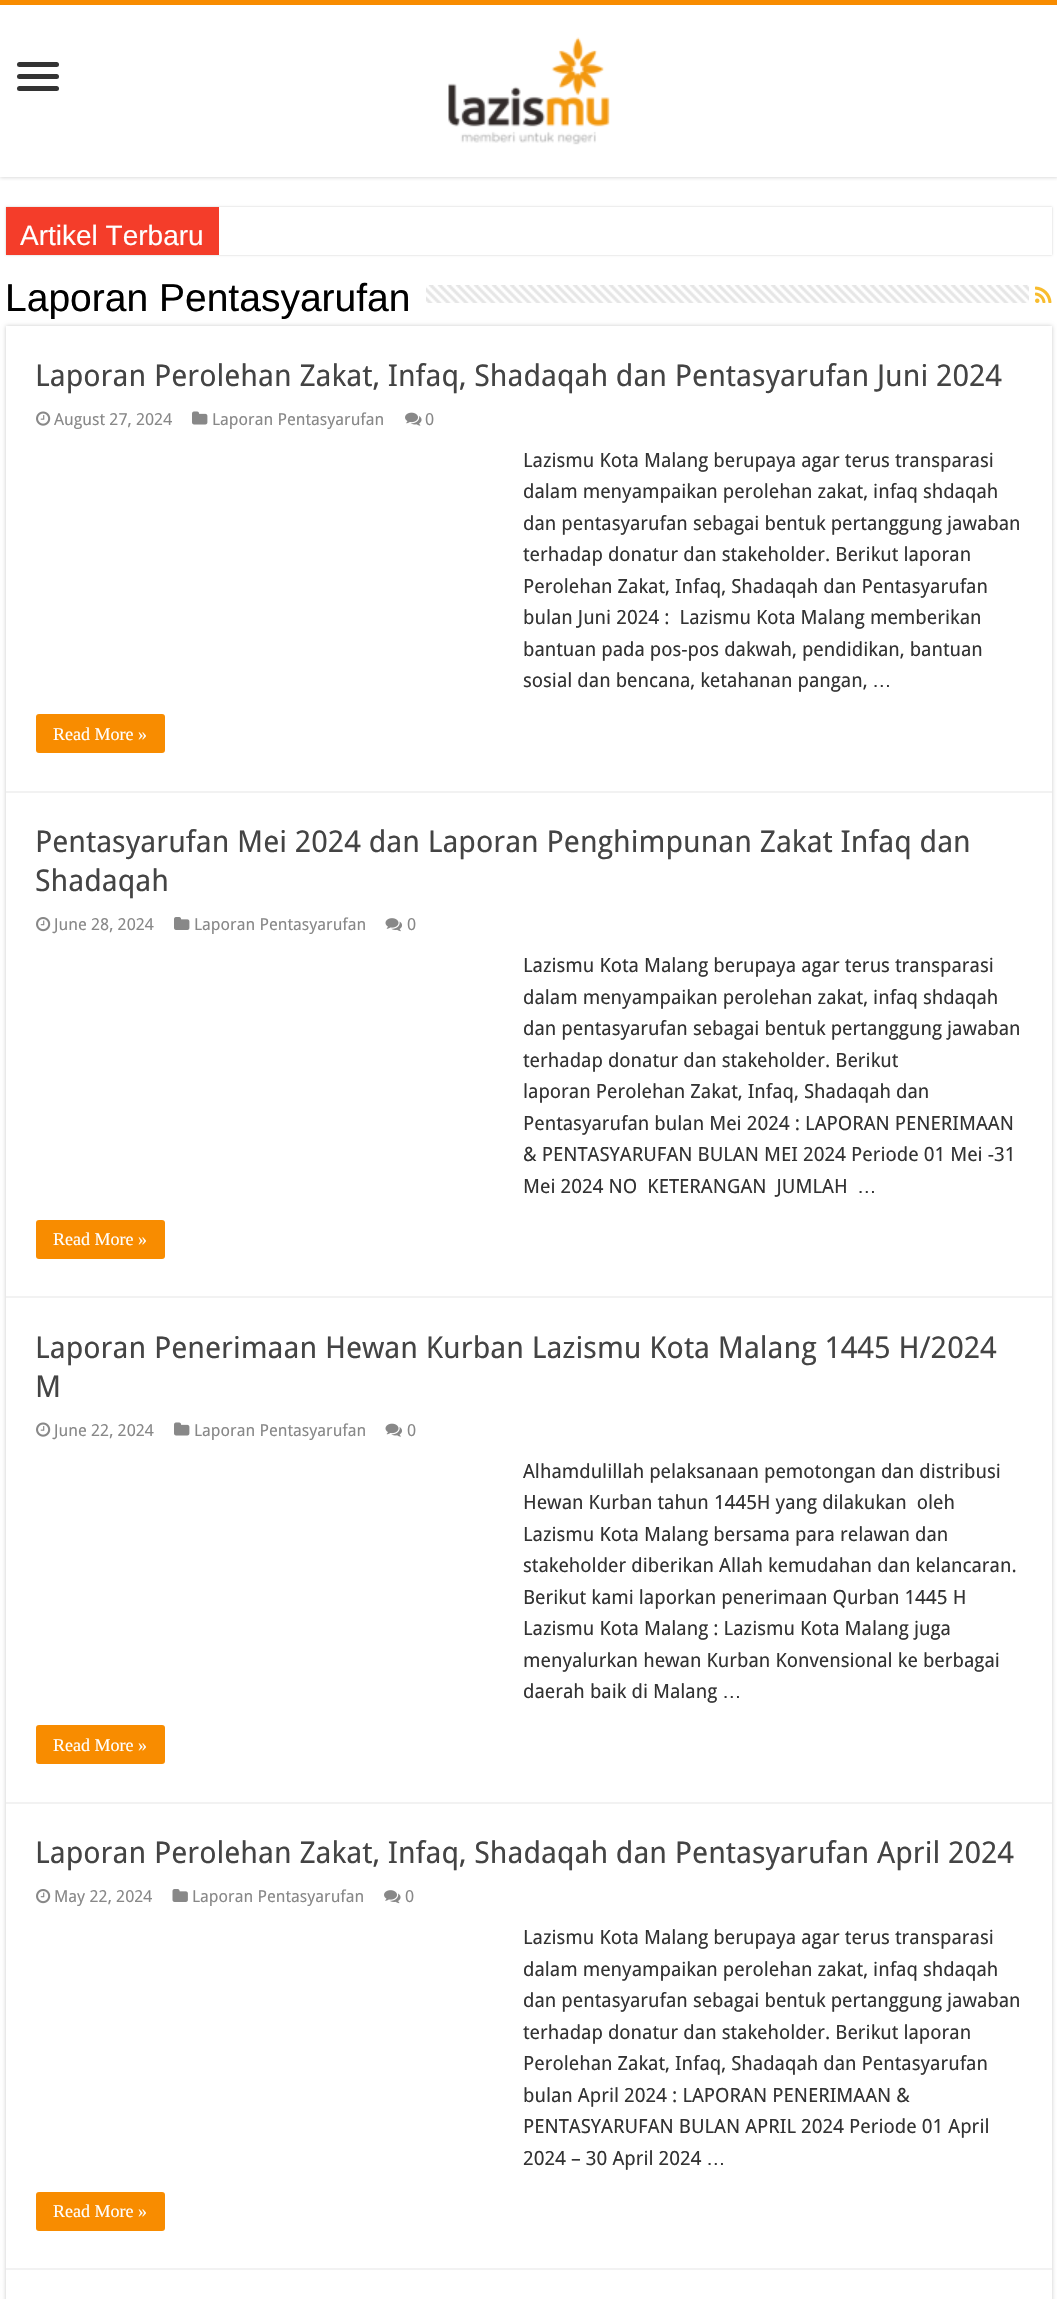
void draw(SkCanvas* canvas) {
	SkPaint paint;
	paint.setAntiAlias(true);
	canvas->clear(0xffffffff);
	canvas->save();
	canvas->clipRect(SkRect::MakeXYWH(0, 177, 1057, 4));
	paint.setColor(0xffcacaca);
	paint.setMaskFilter(SkMaskFilter::MakeBlur(kNormal_SkBlurStyle, 2));
	canvas->drawRect(SkRect::MakeXYWH(0, 0, 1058, 177), paint);
	paint.setMaskFilter(nullptr);
	canvas->restore();
	paint.setColor(0xfff88c00);
	canvas->drawRect(SkRect::MakeXYWH(0, 0, 1057, 5), paint);
	paint.setColor(0xff333333);
	canvas->drawRoundRect(SkRect::MakeXYWH(17, 62, 42, 5), 2.5, 2.5, paint);
	canvas->drawRoundRect(SkRect::MakeXYWH(17, 74, 42, 5), 2.5, 2.5, paint);
	canvas->drawRoundRect(SkRect::MakeXYWH(17, 86, 42, 5), 2.5, 2.5, paint);
	canvas->drawImageRect(SkImages::DeferredFromEncodedData(SkData::MakeFromFileName("img1.png")), SkRect::MakeXYWH(448, 37, 162, 108), SkSamplingOptions());
	paint.setColor(0xffcacaca);
	paint.setMaskFilter(SkMaskFilter::MakeBlur(kNormal_SkBlurStyle, 1));
	canvas->drawRect(SkRect::MakeXYWH(6, 207, 1046, 48), paint);
	paint.setMaskFilter(nullptr);
	paint.setColor(0xffffffff);
	canvas->drawRect(SkRect::MakeXYWH(219, 207, 833, 48), paint);
	paint.setColor(0xfff43d2a);
	canvas->drawRect(SkRect::MakeXYWH(6, 207, 213, 48), paint);
	SkFont f1(fontMgr->matchFamilyStyle("Liberation Sans", SkFontStyle::Normal()), 28);
	f1.setSubpixel(true);
	paint.setColor(0xffffffff);
	canvas->drawString("Artikel Terbaru", 20, 245, f1, paint);
	paint.setColor(0xffcacaca);
	paint.setMaskFilter(SkMaskFilter::MakeBlur(kNormal_SkBlurStyle, 2));
	canvas->drawRect(SkRect::MakeXYWH(6, 326, 1046, 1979), paint);
	paint.setMaskFilter(nullptr);
	SkFont f2(fontMgr->matchFamilyStyle("Liberation Sans", SkFontStyle::Normal()), 39);
	f2.setSubpixel(true);
	paint.setColor(0xff000000);
	canvas->drawString("Laporan Pentasyarufan", 5, 311, f2, paint);
	canvas->drawImageRect(SkImages::DeferredFromEncodedData(SkData::MakeFromFileName("img2.png")), SkRect::MakeXYWH(426, 285, 603, 18), SkSamplingOptions());
	canvas->drawImageRect(SkImages::DeferredFromEncodedData(SkData::MakeFromFileName("img3.png")), SkRect::MakeXYWH(1035, 286, 17, 17), SkSamplingOptions());
	paint.setColor(0xffffffff);
	canvas->drawRect(SkRect::MakeXYWH(6, 326, 1046, 1973), paint);
	paint.setColor(0xfff2f2f2);
	canvas->drawRect(SkRect::MakeXYWH(6, 791, 1046, 2), paint);
	SkFont f3(fontMgr->matchFamilyStyle("Droid Sans", SkFontStyle::Normal()), 30);
	f3.setSubpixel(true);
	paint.setColor(0xff444444);
	canvas->drawString("Laporan Perolehan Zakat, Infaq, Shadaqah dan Pentasyarufan Juni 2024", 35, 386, f3, paint);
	canvas->drawImageRect(SkImages::DeferredFromEncodedData(SkData::MakeFromFileName("img4.png")), SkRect::MakeXYWH(36, 411, 15, 15), SkSamplingOptions());
	SkFont f4(fontMgr->matchFamilyStyle("Droid Sans", SkFontStyle::Normal()), 16.5);
	f4.setSubpixel(true);
	paint.setColor(0xff888888);
	canvas->drawString("August 27, 2024", 54, 425, f4, paint);
	canvas->drawImageRect(SkImages::DeferredFromEncodedData(SkData::MakeFromFileName("img5.png")), SkRect::MakeXYWH(192, 411, 16, 14), SkSamplingOptions());
	canvas->drawString("Laporan Pentasyarufan", 212, 425, f4, paint);
	canvas->drawImageRect(SkImages::DeferredFromEncodedData(SkData::MakeFromFileName("img6.png")), SkRect::MakeXYWH(405, 412, 17, 14), SkSamplingOptions());
	canvas->drawString("0", 425, 425, f4, paint);
	SkFont f5(fontMgr->matchFamilyStyle("Droid Sans", SkFontStyle::Normal()), 19.5);
	f5.setSubpixel(true);
	paint.setColor(0xff333333);
	canvas->drawString("Lazismu Kota Malang berupaya agar terus transparasi", 523, 467, f5, paint);
	canvas->drawString("dalam menyampaikan perolehan zakat, infaq shdaqah", 523, 498, f5, paint);
	canvas->drawString("dan pentasyarufan sebagai bentuk pertanggung jawaban", 523, 530, f5, paint);
	canvas->drawString("terhadap donatur dan stakeholder. Berikut laporan", 523, 561, f5, paint);
	canvas->drawString("Perolehan Zakat, Infaq, Shadaqah dan Pentasyarufan", 523, 593, f5, paint);
	canvas->drawString("bulan Juni 2024 :  Lazismu Kota Malang memberikan", 523, 624, f5, paint);
	canvas->drawString("bantuan pada pos-pos dakwah, pendidikan, bantuan", 523, 656, f5, paint);
	canvas->drawString("sosial dan bencana, ketahanan pangan,", 523, 687, f5, paint);
	SkFont f6(fontMgr->matchFamilyStyle("Liberation Sans", SkFontStyle::Normal()), 19.5);
	f6.setSubpixel(true);
	canvas->drawString("…", 872, 687, f6, paint);
	paint.setColor(0xfff88c00);
	canvas->drawRoundRect(SkRect::MakeXYWH(36, 714, 129, 39), 3, 3, paint);
	SkFont f7(fontMgr->matchFamilyStyle("Liberation Serif", SkFontStyle::Normal()), 18);
	f7.setSubpixel(true);
	paint.setColor(0xffffffff);
	canvas->drawString("Read More »", 53, 740, f7, paint);
	paint.setColor(0xfff2f2f2);
	canvas->drawRect(SkRect::MakeXYWH(6, 1296, 1046, 2), paint);
	paint.setColor(0xff444444);
	canvas->drawString("Pentasyarufan Mei 2024 dan Laporan Penghimpunan Zakat Infaq dan", 35, 852, f3, paint);
	canvas->drawString("Shadaqah", 35, 891, f3, paint);
	canvas->drawImageRect(SkImages::DeferredFromEncodedData(SkData::MakeFromFileName("img7.png")), SkRect::MakeXYWH(36, 917, 15, 15), SkSamplingOptions());
	paint.setColor(0xff888888);
	canvas->drawString("June 28, 2024", 54, 930, f4, paint);
	canvas->drawImageRect(SkImages::DeferredFromEncodedData(SkData::MakeFromFileName("img8.png")), SkRect::MakeXYWH(174, 917, 16, 13), SkSamplingOptions());
	canvas->drawString("Laporan Pentasyarufan", 194, 930, f4, paint);
	canvas->drawImageRect(SkImages::DeferredFromEncodedData(SkData::MakeFromFileName("img9.png")), SkRect::MakeXYWH(385, 918, 17, 14), SkSamplingOptions());
	canvas->drawString("0", 407, 930, f4, paint);
	paint.setColor(0xff333333);
	canvas->drawString("Lazismu Kota Malang berupaya agar terus transparasi", 523, 972, f5, paint);
	canvas->drawString("dalam menyampaikan perolehan zakat, infaq shdaqah", 523, 1004, f5, paint);
	canvas->drawString("dan pentasyarufan sebagai bentuk pertanggung jawaban", 523, 1035, f5, paint);
	canvas->drawString("terhadap donatur dan stakeholder. Berikut", 523, 1067, f5, paint);
	canvas->drawString("laporan Perolehan Zakat, Infaq, Shadaqah dan", 523, 1098, f5, paint);
	canvas->drawString("Pentasyarufan bulan Mei 2024 : LAPORAN PENERIMAAN", 523, 1130, f5, paint);
	canvas->drawString("& PENTASYARUFAN BULAN MEI 2024 Periode 01 Mei -31", 523, 1161, f5, paint);
	canvas->drawString("Mei 2024 NO  KETERANGAN  JUMLAH", 523, 1193, f5, paint);
	canvas->drawString("…", 857, 1193, f6, paint);
	paint.setColor(0xfff88c00);
	canvas->drawRoundRect(SkRect::MakeXYWH(36, 1220, 129, 39), 3, 3, paint);
	paint.setColor(0xffffffff);
	canvas->drawString("Read More »", 53, 1245, f7, paint);
	paint.setColor(0xfff2f2f2);
	canvas->drawRect(SkRect::MakeXYWH(6, 1802, 1046, 2), paint);
	paint.setColor(0xff444444);
	canvas->drawString("Laporan Penerimaan Hewan Kurban Lazismu Kota Malang 1445 H/2024", 35, 1358, f3, paint);
	canvas->drawString("M", 35, 1397, f3, paint);
	canvas->drawImageRect(SkImages::DeferredFromEncodedData(SkData::MakeFromFileName("img4.png")), SkRect::MakeXYWH(36, 1422, 15, 15), SkSamplingOptions());
	paint.setColor(0xff888888);
	canvas->drawString("June 22, 2024", 54, 1436, f4, paint);
	canvas->drawImageRect(SkImages::DeferredFromEncodedData(SkData::MakeFromFileName("img5.png")), SkRect::MakeXYWH(174, 1422, 16, 14), SkSamplingOptions());
	canvas->drawString("Laporan Pentasyarufan", 194, 1436, f4, paint);
	canvas->drawImageRect(SkImages::DeferredFromEncodedData(SkData::MakeFromFileName("img10.png")), SkRect::MakeXYWH(385, 1423, 17, 14), SkSamplingOptions());
	canvas->drawString("0", 407, 1436, f4, paint);
	paint.setColor(0xff333333);
	canvas->drawString("Alhamdulillah pelaksanaan pemotongan dan distribusi", 523, 1478, f5, paint);
	canvas->drawString("Hewan Kurban tahun 1445H yang dilakukan  oleh", 523, 1509, f5, paint);
	canvas->drawString("Lazismu Kota Malang bersama para relawan dan", 523, 1541, f5, paint);
	canvas->drawString("stakeholder diberikan Allah kemudahan dan kelancaran.", 523, 1572, f5, paint);
	canvas->drawString("Berikut kami laporkan penerimaan Qurban 1445 H", 523, 1604, f5, paint);
	canvas->drawString("Lazismu Kota Malang : Lazismu Kota Malang juga", 523, 1635, f5, paint);
	canvas->drawString("menyalurkan hewan Kurban Konvensional ke berbagai", 523, 1667, f5, paint);
	canvas->drawString("daerah baik di Malang", 523, 1698, f5, paint);
	canvas->drawString("…", 722, 1698, f6, paint);
	paint.setColor(0xfff88c00);
	canvas->drawRoundRect(SkRect::MakeXYWH(36, 1725, 129, 39), 3, 3, paint);
	paint.setColor(0xffffffff);
	canvas->drawString("Read More »", 53, 1751, f7, paint);
	paint.setColor(0xfff2f2f2);
	canvas->drawRect(SkRect::MakeXYWH(6, 2268, 1046, 2), paint);
	paint.setColor(0xff444444);
	canvas->drawString("Laporan Perolehan Zakat, Infaq, Shadaqah dan Pentasyarufan April 2024", 35, 1863, f3, paint);
	canvas->drawImageRect(SkImages::DeferredFromEncodedData(SkData::MakeFromFileName("img7.png")), SkRect::MakeXYWH(36, 1889, 15, 15), SkSamplingOptions());
	paint.setColor(0xff888888);
	canvas->drawString("May 22, 2024", 54, 1902, f4, paint);
	canvas->drawImageRect(SkImages::DeferredFromEncodedData(SkData::MakeFromFileName("img11.png")), SkRect::MakeXYWH(172, 1889, 16, 13), SkSamplingOptions());
	canvas->drawString("Laporan Pentasyarufan", 192, 1902, f4, paint);
	canvas->drawImageRect(SkImages::DeferredFromEncodedData(SkData::MakeFromFileName("img12.png")), SkRect::MakeXYWH(384, 1890, 17, 14), SkSamplingOptions());
	canvas->drawString("0", 405, 1902, f4, paint);
	paint.setColor(0xff333333);
	canvas->drawString("Lazismu Kota Malang berupaya agar terus transparasi", 523, 1944, f5, paint);
	canvas->drawString("dalam menyampaikan perolehan zakat, infaq shdaqah", 523, 1976, f5, paint);
	canvas->drawString("dan pentasyarufan sebagai bentuk pertanggung jawaban", 523, 2007, f5, paint);
	canvas->drawString("terhadap donatur dan stakeholder. Berikut laporan", 523, 2039, f5, paint);
	canvas->drawString("Perolehan Zakat, Infaq, Shadaqah dan Pentasyarufan", 523, 2070, f5, paint);
	canvas->drawString("bulan April 2024 : LAPORAN PENERIMAAN &", 523, 2102, f5, paint);
	canvas->drawString("PENTASYARUFAN BULAN APRIL 2024 Periode 01 April", 523, 2133, f5, paint);
	canvas->drawString("2024 – 30 April 2024", 523, 2165, f5, paint);
	canvas->drawString("…", 706, 2165, f6, paint);
	paint.setColor(0xfff88c00);
	canvas->drawRoundRect(SkRect::MakeXYWH(36, 2192, 129, 39), 3, 3, paint);
	paint.setColor(0xffffffff);
	canvas->drawString("Read More »", 53, 2217, f7, paint);
}
